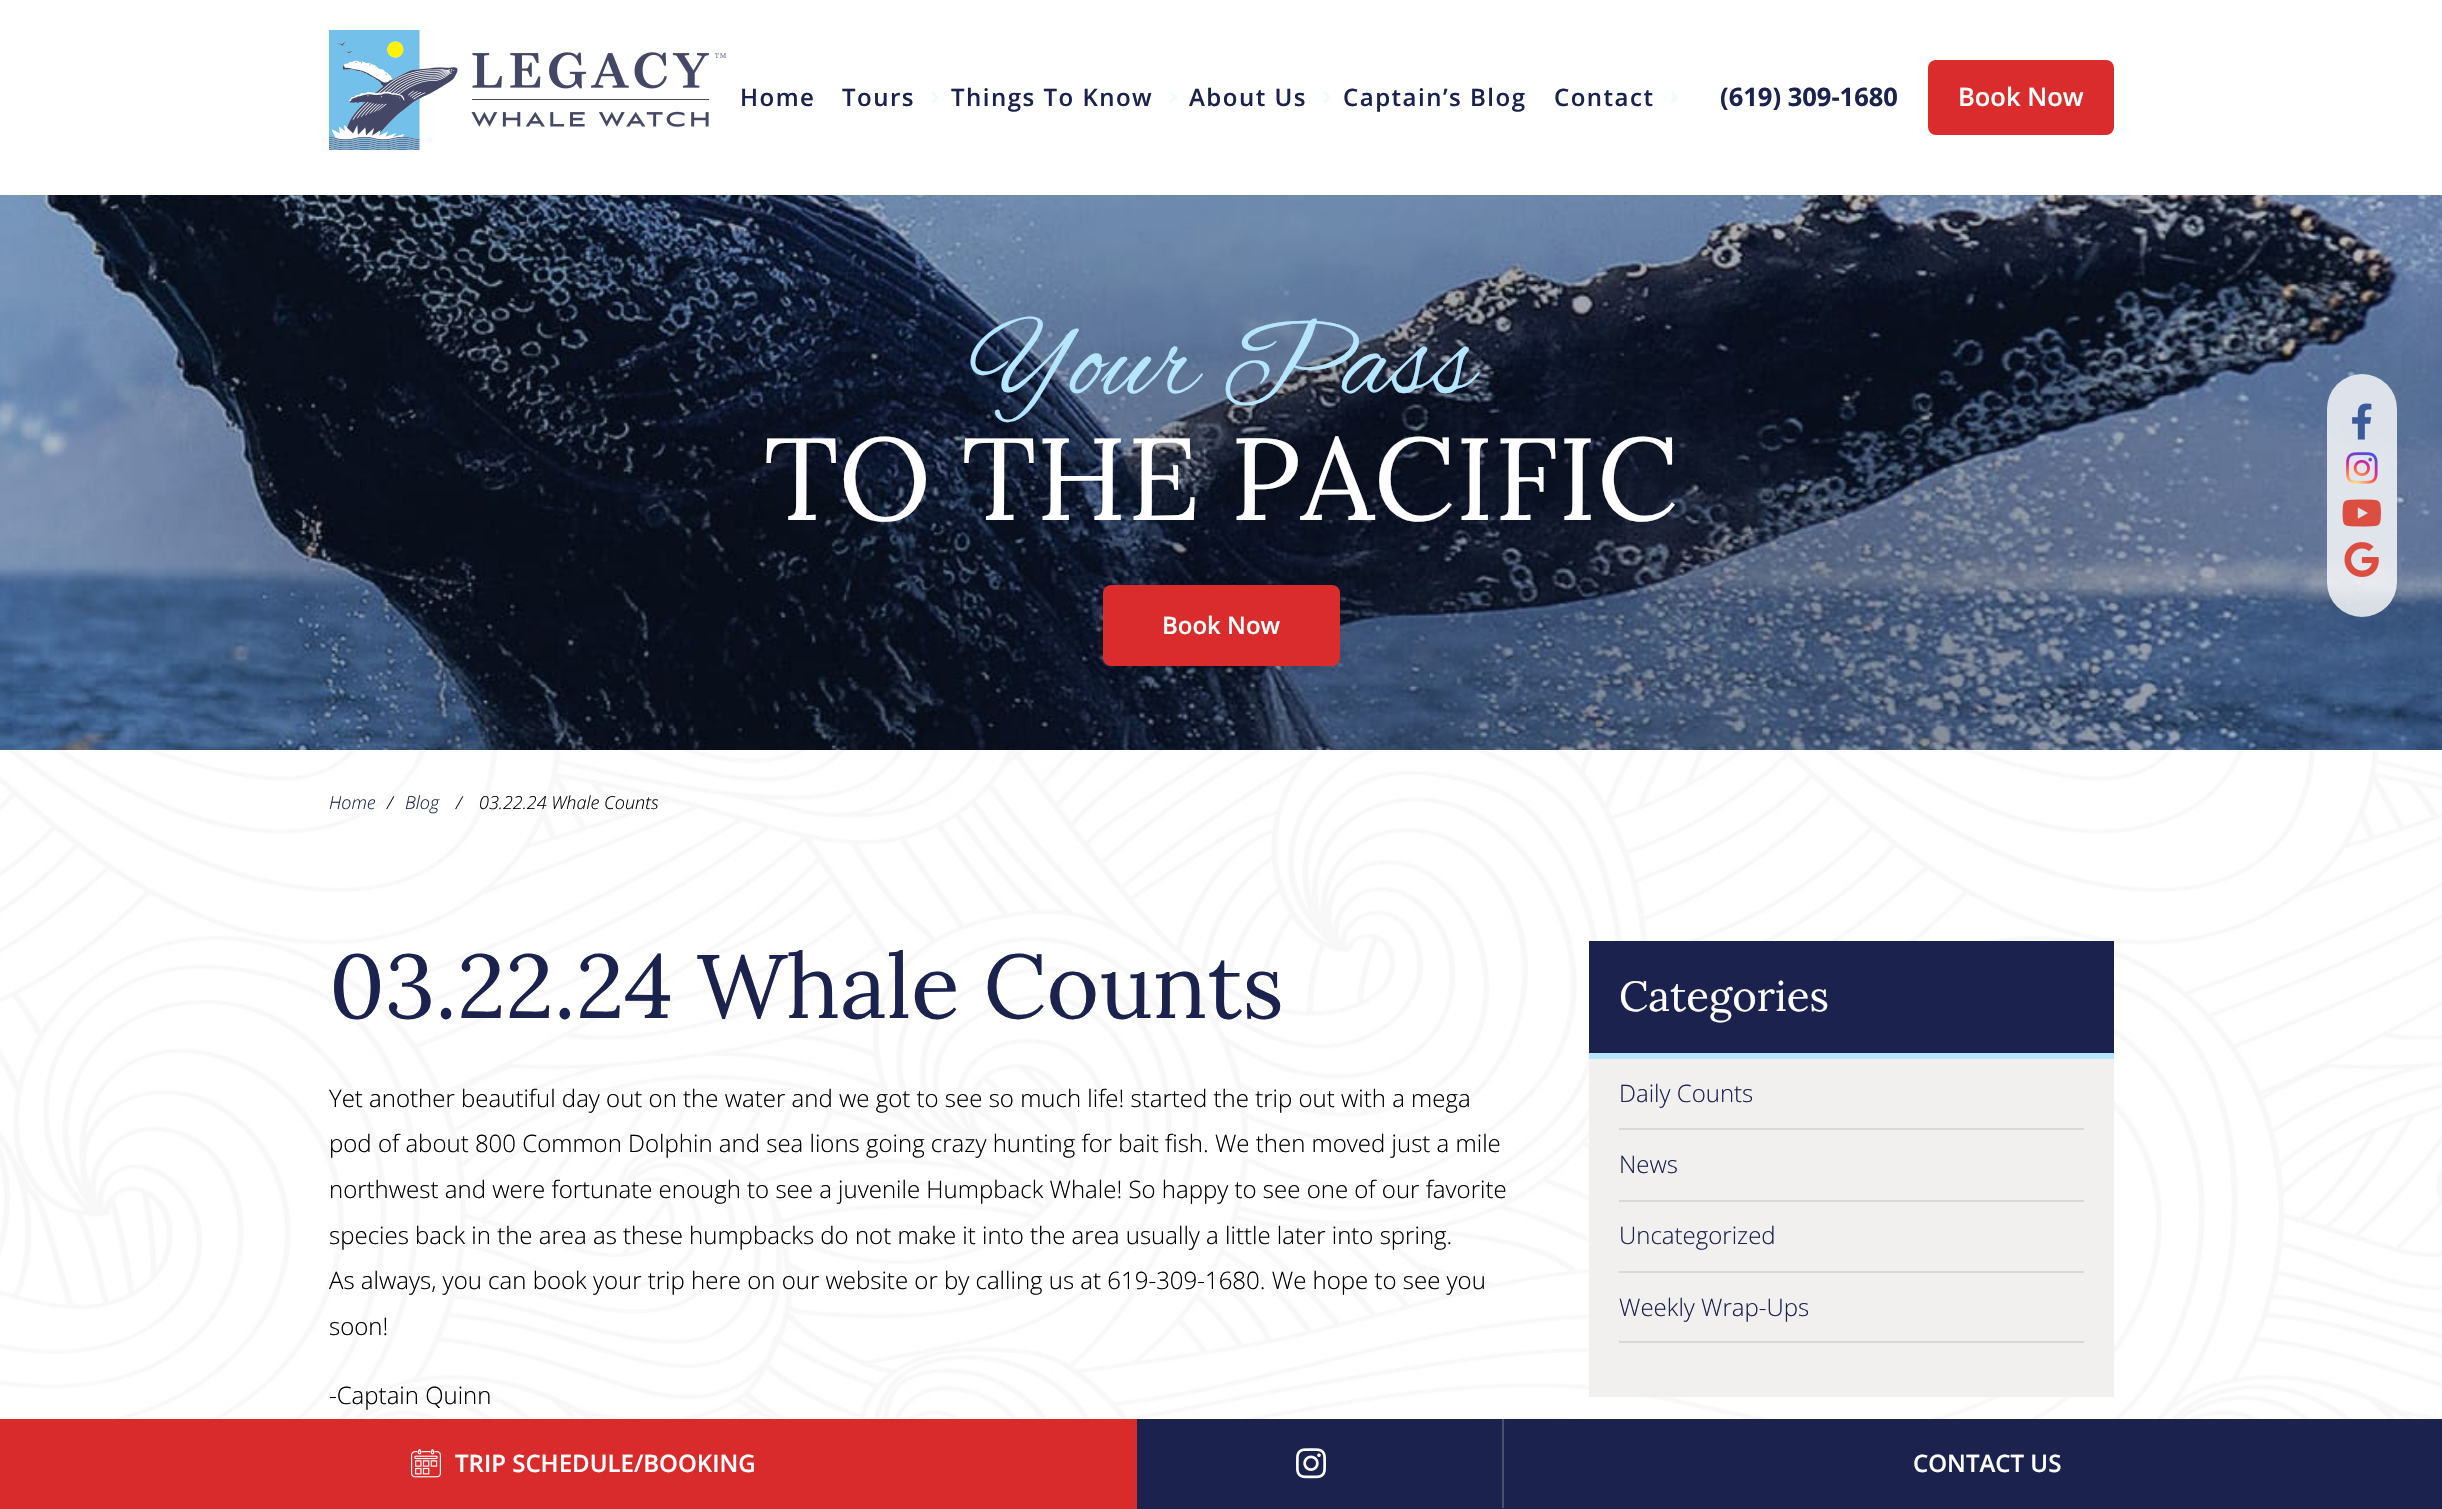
void draw(SkCanvas* canvas) {
	SkPaint paint;
	paint.setAntiAlias(true);
	auto spacedText = [&](const char* s, float x, float y, const SkFont& font, const SkPaint& ink, float letter, float word) {
		std::vector<SkGlyphID> glyphs(font.countText(s, strlen(s), SkTextEncoding::kUTF8));
		std::vector<float> xs(glyphs.size());
		font.textToGlyphs(s, strlen(s), SkTextEncoding::kUTF8, glyphs);
		font.getXPos(glyphs, xs, x);
		float extra = 0;
		for (size_t i = 0; i < glyphs.size(); i++) {
			xs[i] += extra;
			extra += letter + word * (glyphs[i] == font.unicharToGlyph(' '));
		}
		canvas->drawTextBlob(SkTextBlob::MakeFromPosHGlyphs(glyphs, xs, y, font), 0, 0, ink);
	};
	auto svgPath = [&](const char* data, bool evenOdd = false) {
		SkPath result = *SkParsePath::FromSVGString(data);
		if (evenOdd) result.setFillType(SkPathFillType::kEvenOdd);
		return result;
	};
	canvas->clear(0xffffffff);
	canvas->drawImageRect(SkImages::DeferredFromEncodedData(SkData::MakeFromFileName("img1.png")), SkRect::MakeXYWH(0, 750, 2442, 669), SkSamplingOptions());
	canvas->drawImageRect(SkImages::DeferredFromEncodedData(SkData::MakeFromFileName("img2.png")), SkRect::MakeXYWH(0, 195, 2442, 555), SkSamplingOptions());
	canvas->drawImageRect(SkImages::DeferredFromEncodedData(SkData::MakeFromFileName("img3.png")), SkRect::MakeXYWH(329, 30, 397, 120), SkSamplingOptions());
	SkFont f1(fontMgr->matchFamilyStyle("Open Sans", SkFontStyle(600, SkFontStyle::kNormal_Width, SkFontStyle::kUpright_Slant)), 24);
	f1.setSubpixel(true);
	paint.setColor(0xff1b224e);
	spacedText("Home", 740, 106, f1, paint, 1.5, 0);
	spacedText("Tours", 842, 106, f1, paint, 1.5, 0);
	paint.setColor(0xfff1fbff);
	canvas->drawPath(svgPath("M933 91L939.5 97.5L937 99.5L931 93Z"), paint);
	canvas->drawPath(svgPath("M937 95L939.5 97.5L933 103.5L931 101.5Z"), paint);
	paint.setColor(0xff1b224e);
	spacedText("Things To Know", 951, 106, f1, paint, 1.5, 0);
	paint.setColor(0xfff1fbff);
	canvas->drawPath(svgPath("M1171 91L1177.5 97.5L1175.5 99.5L1169 93Z"), paint);
	canvas->drawPath(svgPath("M1175.5 95L1177.5 97.5L1171 103.5L1169 101.5Z"), paint);
	paint.setColor(0xff1b224e);
	spacedText("About Us", 1189, 106, f1, paint, 1.5, 0);
	paint.setColor(0xfff1fbff);
	canvas->drawPath(svgPath("M1325 91L1331.5 97.5L1329.5 99.5L1323 93Z"), paint);
	canvas->drawPath(svgPath("M1329.5 95L1331.5 97.5L1325 103.5L1323 101.5Z"), paint);
	paint.setColor(0xff1b224e);
	spacedText("Captain’s Blog", 1343, 106, f1, paint, 1.5, 0);
	spacedText("Contact", 1554, 106, f1, paint, 1.5, 0);
	paint.setColor(0xfff1fbff);
	canvas->drawPath(svgPath("M1672 91L1678.5 97.5L1676 99.5L1670 93Z"), paint);
	canvas->drawPath(svgPath("M1676 95L1678.5 97.5L1672 103.5L1670 101.5Z"), paint);
	SkFont f2(fontMgr->matchFamilyStyle("Open Sans", SkFontStyle::Bold()), 25.5);
	f2.setSubpixel(true);
	paint.setColor(0xff1b224e);
	canvas->drawString("(619) 309-1680", 1720, 106, f2, paint);
	paint.setColor(0xffda2c2c);
	canvas->drawRoundRect(SkRect::MakeXYWH(1928, 60, 186, 75), 8, 8, paint);
	SkFont f3(fontMgr->matchFamilyStyle("Open Sans", SkFontStyle(600, SkFontStyle::kNormal_Width, SkFontStyle::kUpright_Slant)), 25.5);
	f3.setSubpixel(true);
	paint.setColor(0xffffffff);
	canvas->drawString("Book Now", 1958, 106, f3, paint);
	SkFont f4(fontMgr->matchFamilyStyle("Alex Brush", SkFontStyle::Normal()), 115.5);
	f4.setSubpixel(true);
	paint.setColor(0xffb6e5ff);
	canvas->drawString("Your Pass", 969, 393, f4, paint);
	SkFont f5(fontMgr->matchFamilyStyle("Lora", SkFontStyle::Normal()), 116.5);
	f5.setSubpixel(true);
	paint.setColor(0xffffffff);
	canvas->drawString("TO THE PACIFIC", 764, 520, f5, paint);
	paint.setColor(0xffda2c2c);
	canvas->drawRoundRect(SkRect::MakeXYWH(1103, 585, 237, 81), 8, 8, paint);
	paint.setColor(0xffffffff);
	canvas->drawString("Book Now", 1162, 634, f1, paint);
	paint.setColor(0xccffffff);
	canvas->drawRoundRect(SkRect::MakeXYWH(2327, 374, 70, 243), 35, 35, paint);
	canvas->drawImageRect(SkImages::DeferredFromEncodedData(SkData::MakeFromFileName("img4.png")), SkRect::MakeXYWH(2352, 403, 20, 37), SkSamplingOptions());
	canvas->drawImageRect(SkImages::DeferredFromEncodedData(SkData::MakeFromFileName("img5.png")), SkRect::MakeXYWH(2346, 452, 32, 32), SkSamplingOptions());
	canvas->drawImageRect(SkImages::DeferredFromEncodedData(SkData::MakeFromFileName("img6.png")), SkRect::MakeXYWH(2342, 499, 39, 28), SkSamplingOptions());
	canvas->drawImageRect(SkImages::DeferredFromEncodedData(SkData::MakeFromFileName("img7.png")), SkRect::MakeXYWH(2344, 542, 35, 35), SkSamplingOptions());
	SkFont f6(fontMgr->matchFamilyStyle("Open Sans", SkFontStyle(300, SkFontStyle::kNormal_Width, SkFontStyle::kItalic_Slant)), 18);
	f6.setSubpixel(true);
	paint.setColor(0xff1b224e);
	canvas->drawString("Home", 329, 809, f6, paint);
	paint.setColor(0xff000000);
	canvas->drawString("/", 387, 809, f6, paint);
	paint.setColor(0xff1b224e);
	canvas->drawString("Blog", 405, 809, f6, paint);
	paint.setColor(0xff000000);
	canvas->drawString("/", 456, 809, f6, paint);
	canvas->drawString("03.22.24 Whale Counts", 479, 809, f6, paint);
	SkFont f7(fontMgr->matchFamilyStyle("Lora", SkFontStyle::Normal()), 90);
	f7.setSubpixel(true);
	paint.setColor(0xff1b224e);
	canvas->drawString("03.22.24 Whale Counts", 329, 1018, f7, paint);
	SkFont f8(fontMgr->matchFamilyStyle("Open Sans", SkFontStyle(300, SkFontStyle::kNormal_Width, SkFontStyle::kUpright_Slant)), 24);
	f8.setSubpixel(true);
	paint.setColor(0xff000000);
	canvas->drawString("Yet another beautiful day out on the water and we got to see so much life! started the trip out with a mega", 329, 1107, f8, paint);
	canvas->drawString("pod of about 800 Common Dolphin and sea lions going crazy hunting for bait fish. We then moved just a mile", 329, 1152, f8, paint);
	canvas->drawString("northwest and were fortunate enough to see a juvenile Humpback Whale! So happy to see one of our favorite", 329, 1198, f8, paint);
	canvas->drawString("species back in the area as these humpbacks do not make it into the area usually a little later into spring.", 329, 1244, f8, paint);
	canvas->drawString("As always, you can book your trip here on our website or by calling us at 619-309-1680. We hope to see you", 329, 1289, f8, paint);
	canvas->drawString("soon!", 329, 1335, f8, paint);
	canvas->drawString("-Captain Quinn", 329, 1404, f8, paint);
	paint.setColor(0xfff2efef);
	canvas->drawRect(SkRect::MakeXYWH(1589, 1059, 525, 338), paint);
	paint.setColor(0xff1b224e);
	canvas->drawRect(SkRect::MakeXYWH(1589, 941, 525, 112), paint);
	SkFont f9(fontMgr->matchFamilyStyle("Lora", SkFontStyle::Normal()), 42);
	f9.setSubpixel(true);
	paint.setColor(0xffffffff);
	canvas->drawString("Categories", 1619, 1011, f9, paint);
	paint.setColor(0xffb6e5ff);
	canvas->drawRect(SkRect::MakeXYWH(1589, 1053, 525, 6), paint);
	paint.setColor(0xffdad7d7);
	canvas->drawRect(SkRect::MakeXYWH(1619, 1128, 465, 2), paint);
	paint.setColor(0xff1b224e);
	canvas->drawString("Daily Counts", 1619, 1102, f8, paint);
	paint.setColor(0xffdad7d7);
	canvas->drawRect(SkRect::MakeXYWH(1619, 1200, 465, 2), paint);
	paint.setColor(0xff1b224e);
	canvas->drawString("News", 1619, 1173, f8, paint);
	paint.setColor(0xffdad7d7);
	canvas->drawRect(SkRect::MakeXYWH(1619, 1271, 465, 2), paint);
	paint.setColor(0xff1b224e);
	canvas->drawString("Uncategorized", 1619, 1244, f8, paint);
	paint.setColor(0xffdad7d7);
	canvas->drawRect(SkRect::MakeXYWH(1619, 1341, 465, 2), paint);
	paint.setColor(0xff1b224e);
	canvas->drawString("Weekly Wrap-Ups", 1619, 1316, f8, paint);
	canvas->drawRect(SkRect::MakeXYWH(1137, 1419, 1305, 90), paint);
	paint.setColor(0xffda2b2c);
	canvas->drawRect(SkRect::MakeXYWH(0, 1419, 1137, 90), paint);
	canvas->drawImageRect(SkImages::DeferredFromEncodedData(SkData::MakeFromFileName("img8.png")), SkRect::MakeXYWH(411, 1449, 30, 29), SkSamplingOptions());
	paint.setColor(0xffffffff);
	canvas->drawString("TRIP SCHEDULE/BOOKING", 455, 1472, f1, paint);
	paint.setColor(0xff494e71);
	canvas->drawRect(SkRect::MakeXYWH(1502, 1419, 2, 89), paint);
	canvas->drawImageRect(SkImages::DeferredFromEncodedData(SkData::MakeFromFileName("img9.png")), SkRect::MakeXYWH(1296, 1448, 30, 31), SkSamplingOptions());
	paint.setColor(0xffffffff);
	canvas->drawString("CONTACT US", 1913, 1472, f1, paint);
}
